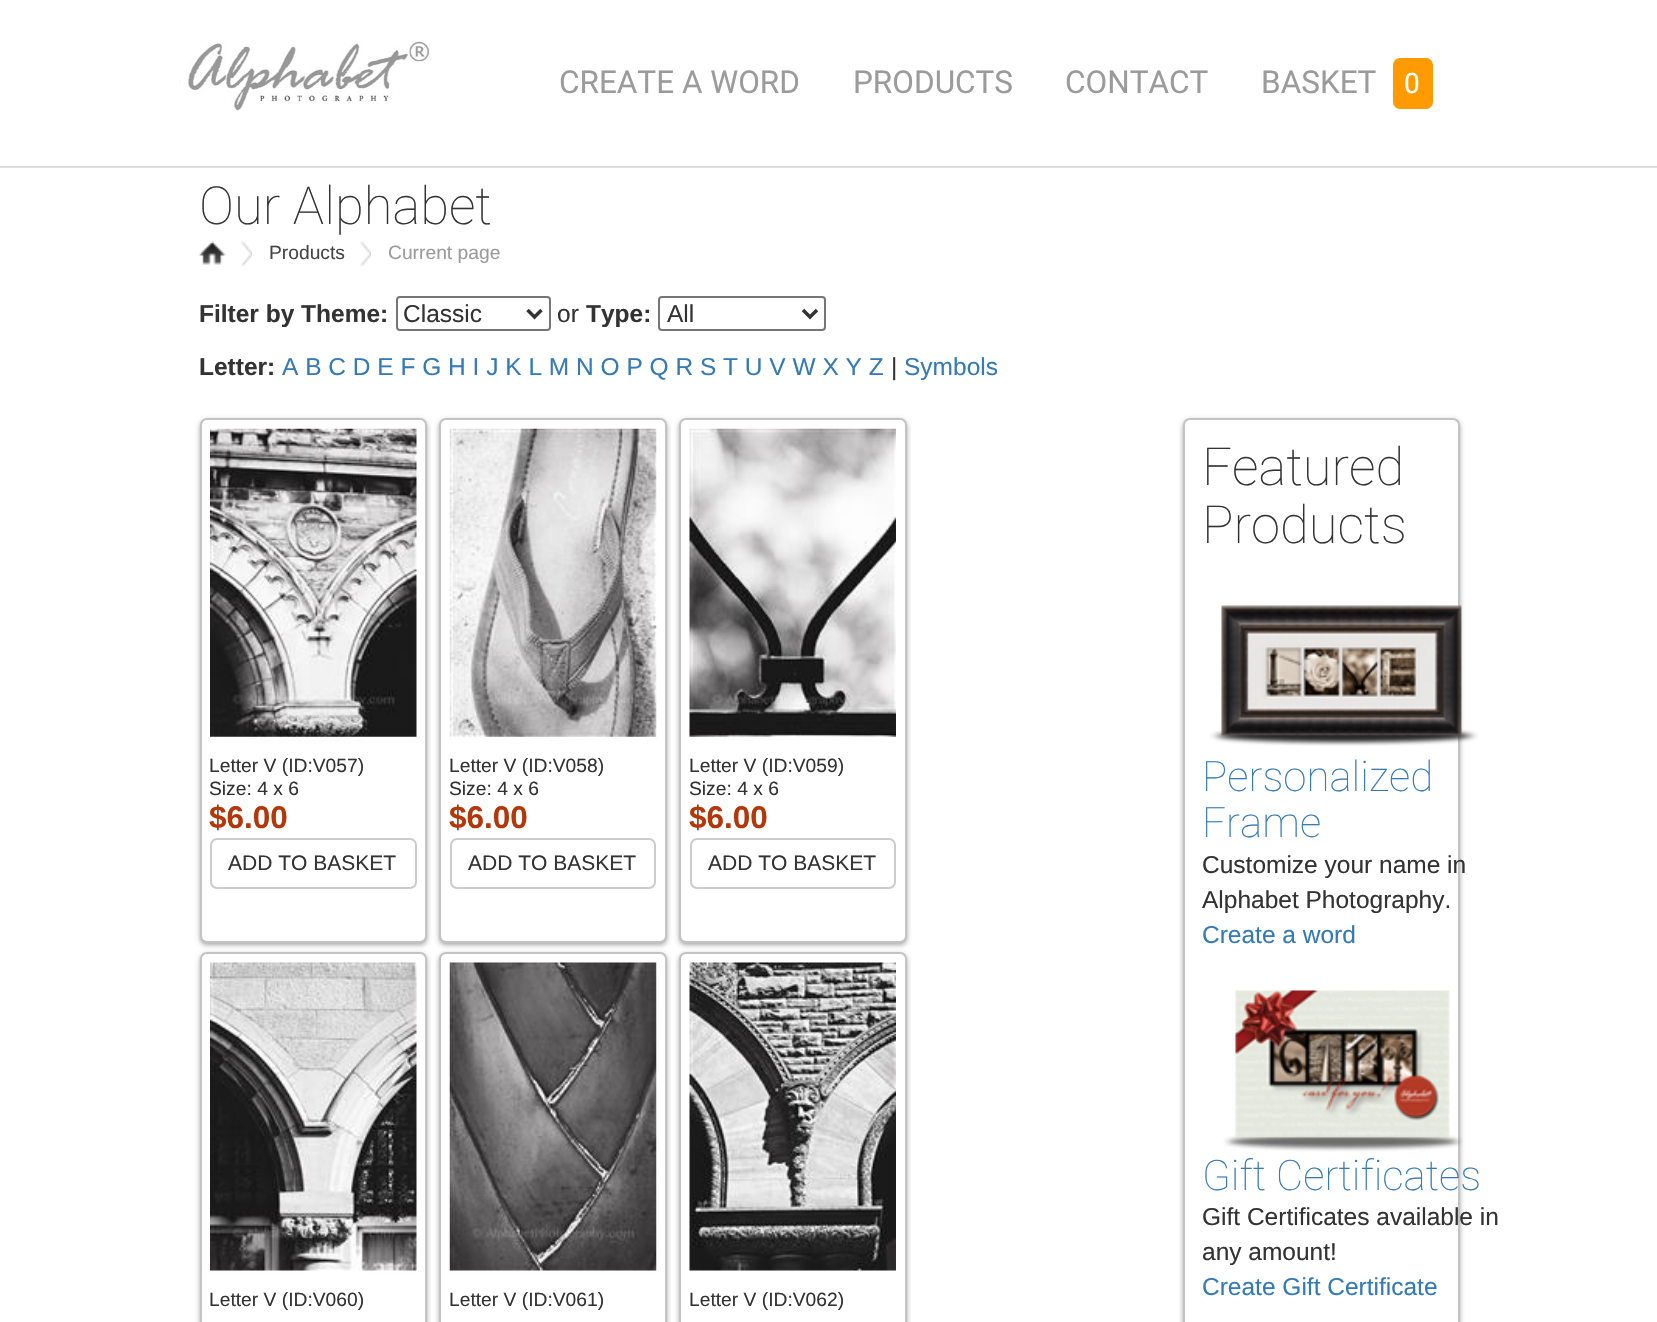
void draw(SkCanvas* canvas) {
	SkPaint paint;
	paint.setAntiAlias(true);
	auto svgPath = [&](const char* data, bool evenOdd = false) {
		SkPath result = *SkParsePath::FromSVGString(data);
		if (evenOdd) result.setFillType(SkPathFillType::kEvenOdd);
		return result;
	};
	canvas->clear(0xffffffff);
	paint.setColor(0xffdddddd);
	canvas->drawRect(SkRect::MakeXYWH(0, 166, 1657, 2), paint);
	canvas->drawImageRect(SkImages::DeferredFromEncodedData(SkData::MakeFromFileName("img1.png")), SkRect::MakeXYWH(179, 41, 251, 70), SkSamplingOptions());
	SkFont f1(fontMgr->matchFamilyStyle("Roboto", SkFontStyle::Normal()), 31.5);
	f1.setSubpixel(true);
	paint.setColor(0xff9b9b9b);
	canvas->drawString("CREATE A WORD", 559, 93, f1, paint);
	canvas->drawString("PRODUCTS", 853, 93, f1, paint);
	canvas->drawString("CONTACT", 1065, 93, f1, paint);
	canvas->drawString("BASKET", 1261, 93, f1, paint);
	paint.setColor(0xffff9b00);
	canvas->drawRoundRect(SkRect::MakeXYWH(1393, 58, 40, 51), 7, 7, paint);
	SkFont f2(fontMgr->matchFamilyStyle("Roboto", SkFontStyle::Normal()), 28);
	f2.setSubpixel(true);
	paint.setColor(0xffffffff);
	canvas->drawString("0", 1404, 93, f2, paint);
	SkFont f3(fontMgr->matchFamilyStyle("Roboto", SkFontStyle(100, SkFontStyle::kNormal_Width, SkFontStyle::kUpright_Slant)), 52.5);
	f3.setSubpixel(true);
	paint.setColor(0xff333333);
	canvas->drawString("Our Alphabet", 199, 224, f3, paint);
	canvas->drawImageRect(SkImages::DeferredFromEncodedData(SkData::MakeFromFileName("img2.png")), SkRect::MakeXYWH(241, 241, 11, 25), SkSamplingOptions());
	canvas->drawImageRect(SkImages::DeferredFromEncodedData(SkData::MakeFromFileName("img3.png")), SkRect::MakeXYWH(199, 241, 27, 24), SkSamplingOptions());
	canvas->drawImageRect(SkImages::DeferredFromEncodedData(SkData::MakeFromFileName("img4.png")), SkRect::MakeXYWH(360, 241, 11, 25), SkSamplingOptions());
	SkFont f4(fontMgr->matchFamilyStyle("Liberation Sans", SkFontStyle::Normal()), 19.25);
	f4.setSubpixel(true);
	paint.setColor(0xff454545);
	canvas->drawString("Products", 269, 259, f4, paint);
	paint.setColor(0xff9b9b9b);
	canvas->drawString("Current page", 388, 259, f4, paint);
	SkFont f5(fontMgr->matchFamilyStyle("Liberation Sans", SkFontStyle::Bold()), 24.5);
	f5.setSubpixel(true);
	paint.setColor(0xff333333);
	canvas->drawString("Filter by Theme:", 199, 322, f5, paint);
	paint.setStroke(true);
	paint.setStrokeWidth(2);
	paint.setColor(0xff767676);
	canvas->drawRoundRect(SkRect::MakeXYWH(397, 297, 153, 33), 3, 3, paint);
	paint.setStrokeWidth(3.5);
	paint.setColor(0xff333333);
	canvas->drawPath(svgPath("M527.5 310L534.5 317L541.5 310"), paint);
	SkFont f6(fontMgr->matchFamilyStyle("Liberation Sans", SkFontStyle::Normal()), 24.5);
	f6.setSubpixel(true);
	paint.setStroke(false);
	canvas->drawString("Classic", 403, 322, f6, paint);
	canvas->drawString("or", 557, 322, f6, paint);
	canvas->drawString("Type:", 586, 322, f5, paint);
	paint.setStroke(true);
	paint.setStrokeWidth(2);
	paint.setColor(0xff767676);
	canvas->drawRoundRect(SkRect::MakeXYWH(659, 297, 166, 33), 3, 3, paint);
	paint.setStrokeWidth(3.5);
	paint.setColor(0xff333333);
	canvas->drawPath(svgPath("M803 310L810 317L817 310"), paint);
	paint.setStroke(false);
	canvas->drawString("All", 667, 322, f6, paint);
	canvas->drawString("Letter:", 199, 375, f5, paint);
	paint.setColor(0xff337ab7);
	canvas->drawString("A B C D E F G H I J K L M N O P Q R S T U V W X Y Z", 282, 375, f6, paint);
	paint.setColor(0xff333333);
	canvas->drawString("|", 891, 375, f6, paint);
	paint.setColor(0xff337ab7);
	canvas->drawString("Symbols", 904, 375, f6, paint);
	paint.setColor(0x59000000);
	paint.setMaskFilter(SkMaskFilter::MakeBlur(kNormal_SkBlurStyle, 2.5));
	canvas->drawRoundRect(SkRect::MakeXYWH(200, 420, 227, 525), 7, 7, paint);
	paint.setMaskFilter(nullptr);
	paint.setColor(0xffffffff);
	canvas->drawRoundRect(SkRect::MakeXYWH(201, 419, 225, 523), 6, 6, paint);
	paint.setStroke(true);
	paint.setStrokeWidth(2);
	paint.setColor(0xffc3c3c3);
	canvas->drawRoundRect(SkRect::MakeXYWH(201, 419, 225, 523), 6, 6, paint);
	canvas->drawImageRect(SkImages::DeferredFromEncodedData(SkData::MakeFromFileName("img5.png")), SkRect::MakeXYWH(210, 428, 207, 309), SkSamplingOptions());
	paint.setStroke(false);
	paint.setColor(0xff333333);
	canvas->drawString("Letter V (ID:V057)", 209, 772, f4, paint);
	canvas->drawString("Size: 4 x 6", 209, 795, f4, paint);
	SkFont f7(fontMgr->matchFamilyStyle("Liberation Sans", SkFontStyle::Bold()), 31.5);
	f7.setSubpixel(true);
	paint.setColor(0xffb4370a);
	canvas->drawString("$6.00", 209, 828, f7, paint);
	paint.setStroke(true);
	paint.setColor(0xffcccccc);
	canvas->drawRoundRect(SkRect::MakeXYWH(211, 839, 205, 49), 6, 6, paint);
	SkFont f8(fontMgr->matchFamilyStyle("Liberation Sans", SkFontStyle::Normal()), 21);
	f8.setSubpixel(true);
	paint.setStroke(false);
	paint.setColor(0xff333333);
	canvas->drawString("ADD TO BASKET", 228, 870, f8, paint);
	paint.setColor(0x59000000);
	paint.setMaskFilter(SkMaskFilter::MakeBlur(kNormal_SkBlurStyle, 2.5));
	canvas->drawRoundRect(SkRect::MakeXYWH(439, 420, 228, 525), 7, 7, paint);
	paint.setMaskFilter(nullptr);
	paint.setColor(0xffffffff);
	canvas->drawRoundRect(SkRect::MakeXYWH(440, 419, 226, 523), 6, 6, paint);
	paint.setStroke(true);
	paint.setColor(0xffc3c3c3);
	canvas->drawRoundRect(SkRect::MakeXYWH(440, 419, 226, 523), 6, 6, paint);
	canvas->drawImageRect(SkImages::DeferredFromEncodedData(SkData::MakeFromFileName("img6.png")), SkRect::MakeXYWH(449, 428, 208, 309), SkSamplingOptions());
	paint.setStroke(false);
	paint.setColor(0xff333333);
	canvas->drawString("Letter V (ID:V058)", 449, 772, f4, paint);
	canvas->drawString("Size: 4 x 6", 449, 795, f4, paint);
	paint.setColor(0xffb4370a);
	canvas->drawString("$6.00", 449, 828, f7, paint);
	paint.setStroke(true);
	paint.setColor(0xffcccccc);
	canvas->drawRoundRect(SkRect::MakeXYWH(451, 839, 204, 49), 6, 6, paint);
	paint.setStroke(false);
	paint.setColor(0xff333333);
	canvas->drawString("ADD TO BASKET", 468, 870, f8, paint);
	paint.setColor(0x59000000);
	paint.setMaskFilter(SkMaskFilter::MakeBlur(kNormal_SkBlurStyle, 2.5));
	canvas->drawRoundRect(SkRect::MakeXYWH(679, 420, 228, 525), 7, 7, paint);
	paint.setMaskFilter(nullptr);
	paint.setColor(0xffffffff);
	canvas->drawRoundRect(SkRect::MakeXYWH(680, 419, 226, 523), 6, 6, paint);
	paint.setStroke(true);
	paint.setColor(0xffc3c3c3);
	canvas->drawRoundRect(SkRect::MakeXYWH(680, 419, 226, 523), 6, 6, paint);
	canvas->drawImageRect(SkImages::DeferredFromEncodedData(SkData::MakeFromFileName("img7.png")), SkRect::MakeXYWH(689, 428, 207, 309), SkSamplingOptions());
	paint.setStroke(false);
	paint.setColor(0xff333333);
	canvas->drawString("Letter V (ID:V059)", 689, 772, f4, paint);
	canvas->drawString("Size: 4 x 6", 689, 795, f4, paint);
	paint.setColor(0xffb4370a);
	canvas->drawString("$6.00", 689, 828, f7, paint);
	paint.setStroke(true);
	paint.setColor(0xffcccccc);
	canvas->drawRoundRect(SkRect::MakeXYWH(691, 839, 204, 49), 6, 6, paint);
	paint.setStroke(false);
	paint.setColor(0xff333333);
	canvas->drawString("ADD TO BASKET", 708, 870, f8, paint);
	paint.setColor(0x59000000);
	paint.setMaskFilter(SkMaskFilter::MakeBlur(kNormal_SkBlurStyle, 2.5));
	canvas->drawRoundRect(SkRect::MakeXYWH(200, 954, 227, 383), 7, 7, paint);
	paint.setMaskFilter(nullptr);
	paint.setColor(0xffffffff);
	canvas->drawRoundRect(SkRect::MakeXYWH(201, 953, 225, 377), 6, 6, paint);
	paint.setStroke(true);
	paint.setColor(0xffc3c3c3);
	canvas->drawRoundRect(SkRect::MakeXYWH(201, 953, 225, 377), 6, 6, paint);
	canvas->drawImageRect(SkImages::DeferredFromEncodedData(SkData::MakeFromFileName("img8.png")), SkRect::MakeXYWH(210, 962, 207, 309), SkSamplingOptions());
	paint.setStroke(false);
	paint.setColor(0xff333333);
	canvas->drawString("Letter V (ID:V060)", 209, 1306, f4, paint);
	paint.setColor(0x59000000);
	paint.setMaskFilter(SkMaskFilter::MakeBlur(kNormal_SkBlurStyle, 2.5));
	canvas->drawRoundRect(SkRect::MakeXYWH(439, 954, 228, 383), 7, 7, paint);
	paint.setMaskFilter(nullptr);
	paint.setColor(0xffffffff);
	canvas->drawRoundRect(SkRect::MakeXYWH(440, 953, 226, 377), 6, 6, paint);
	paint.setStroke(true);
	paint.setColor(0xffc3c3c3);
	canvas->drawRoundRect(SkRect::MakeXYWH(440, 953, 226, 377), 6, 6, paint);
	canvas->drawImageRect(SkImages::DeferredFromEncodedData(SkData::MakeFromFileName("img9.png")), SkRect::MakeXYWH(449, 962, 208, 309), SkSamplingOptions());
	paint.setStroke(false);
	paint.setColor(0xff333333);
	canvas->drawString("Letter V (ID:V061)", 449, 1306, f4, paint);
	paint.setColor(0x59000000);
	paint.setMaskFilter(SkMaskFilter::MakeBlur(kNormal_SkBlurStyle, 2.5));
	canvas->drawRoundRect(SkRect::MakeXYWH(679, 954, 228, 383), 7, 7, paint);
	paint.setMaskFilter(nullptr);
	paint.setColor(0xffffffff);
	canvas->drawRoundRect(SkRect::MakeXYWH(680, 953, 226, 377), 6, 6, paint);
	paint.setStroke(true);
	paint.setColor(0xffc3c3c3);
	canvas->drawRoundRect(SkRect::MakeXYWH(680, 953, 226, 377), 6, 6, paint);
	canvas->drawImageRect(SkImages::DeferredFromEncodedData(SkData::MakeFromFileName("img10.png")), SkRect::MakeXYWH(689, 962, 207, 309), SkSamplingOptions());
	paint.setStroke(false);
	paint.setColor(0xff333333);
	canvas->drawString("Letter V (ID:V062)", 689, 1306, f4, paint);
	paint.setColor(0x59000000);
	paint.setMaskFilter(SkMaskFilter::MakeBlur(kNormal_SkBlurStyle, 2.5));
	canvas->drawRoundRect(SkRect::MakeXYWH(1183, 420, 277, 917), 7, 7, paint);
	paint.setMaskFilter(nullptr);
	paint.setColor(0xffffffff);
	canvas->drawRoundRect(SkRect::MakeXYWH(1184, 419, 275, 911), 6, 6, paint);
	paint.setStroke(true);
	paint.setColor(0xffc3c3c3);
	canvas->drawRoundRect(SkRect::MakeXYWH(1184, 419, 275, 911), 6, 6, paint);
	paint.setStroke(false);
	paint.setColor(0xff333333);
	canvas->drawString("Featured", 1202, 485, f3, paint);
	canvas->drawString("Products", 1202, 543, f3, paint);
	canvas->drawImageRect(SkImages::DeferredFromEncodedData(SkData::MakeFromFileName("img11.png")), SkRect::MakeXYWH(1210, 605, 268, 141), SkSamplingOptions());
	SkFont f9(fontMgr->matchFamilyStyle("Roboto", SkFontStyle(100, SkFontStyle::kNormal_Width, SkFontStyle::kUpright_Slant)), 42);
	f9.setSubpixel(true);
	paint.setColor(0xff337ab7);
	canvas->drawString("Personalized", 1202, 791, f9, paint);
	canvas->drawString("Frame", 1202, 837, f9, paint);
	paint.setColor(0xff333333);
	canvas->drawString("Customize your name in", 1202, 873, f6, paint);
	canvas->drawString("Alphabet Photography.", 1202, 908, f6, paint);
	paint.setColor(0xff337ab7);
	canvas->drawString("Create a word", 1202, 943, f6, paint);
	canvas->drawImageRect(SkImages::DeferredFromEncodedData(SkData::MakeFromFileName("img12.png")), SkRect::MakeXYWH(1223, 990, 240, 162), SkSamplingOptions());
	canvas->drawString("Gift Certificates", 1202, 1190, f9, paint);
	paint.setColor(0xff333333);
	canvas->drawString("Gift Certificates available in", 1202, 1225, f6, paint);
	canvas->drawString("any amount!", 1202, 1260, f6, paint);
	paint.setColor(0xff337ab7);
	canvas->drawString("Create Gift Certificate", 1202, 1295, f6, paint);
}
